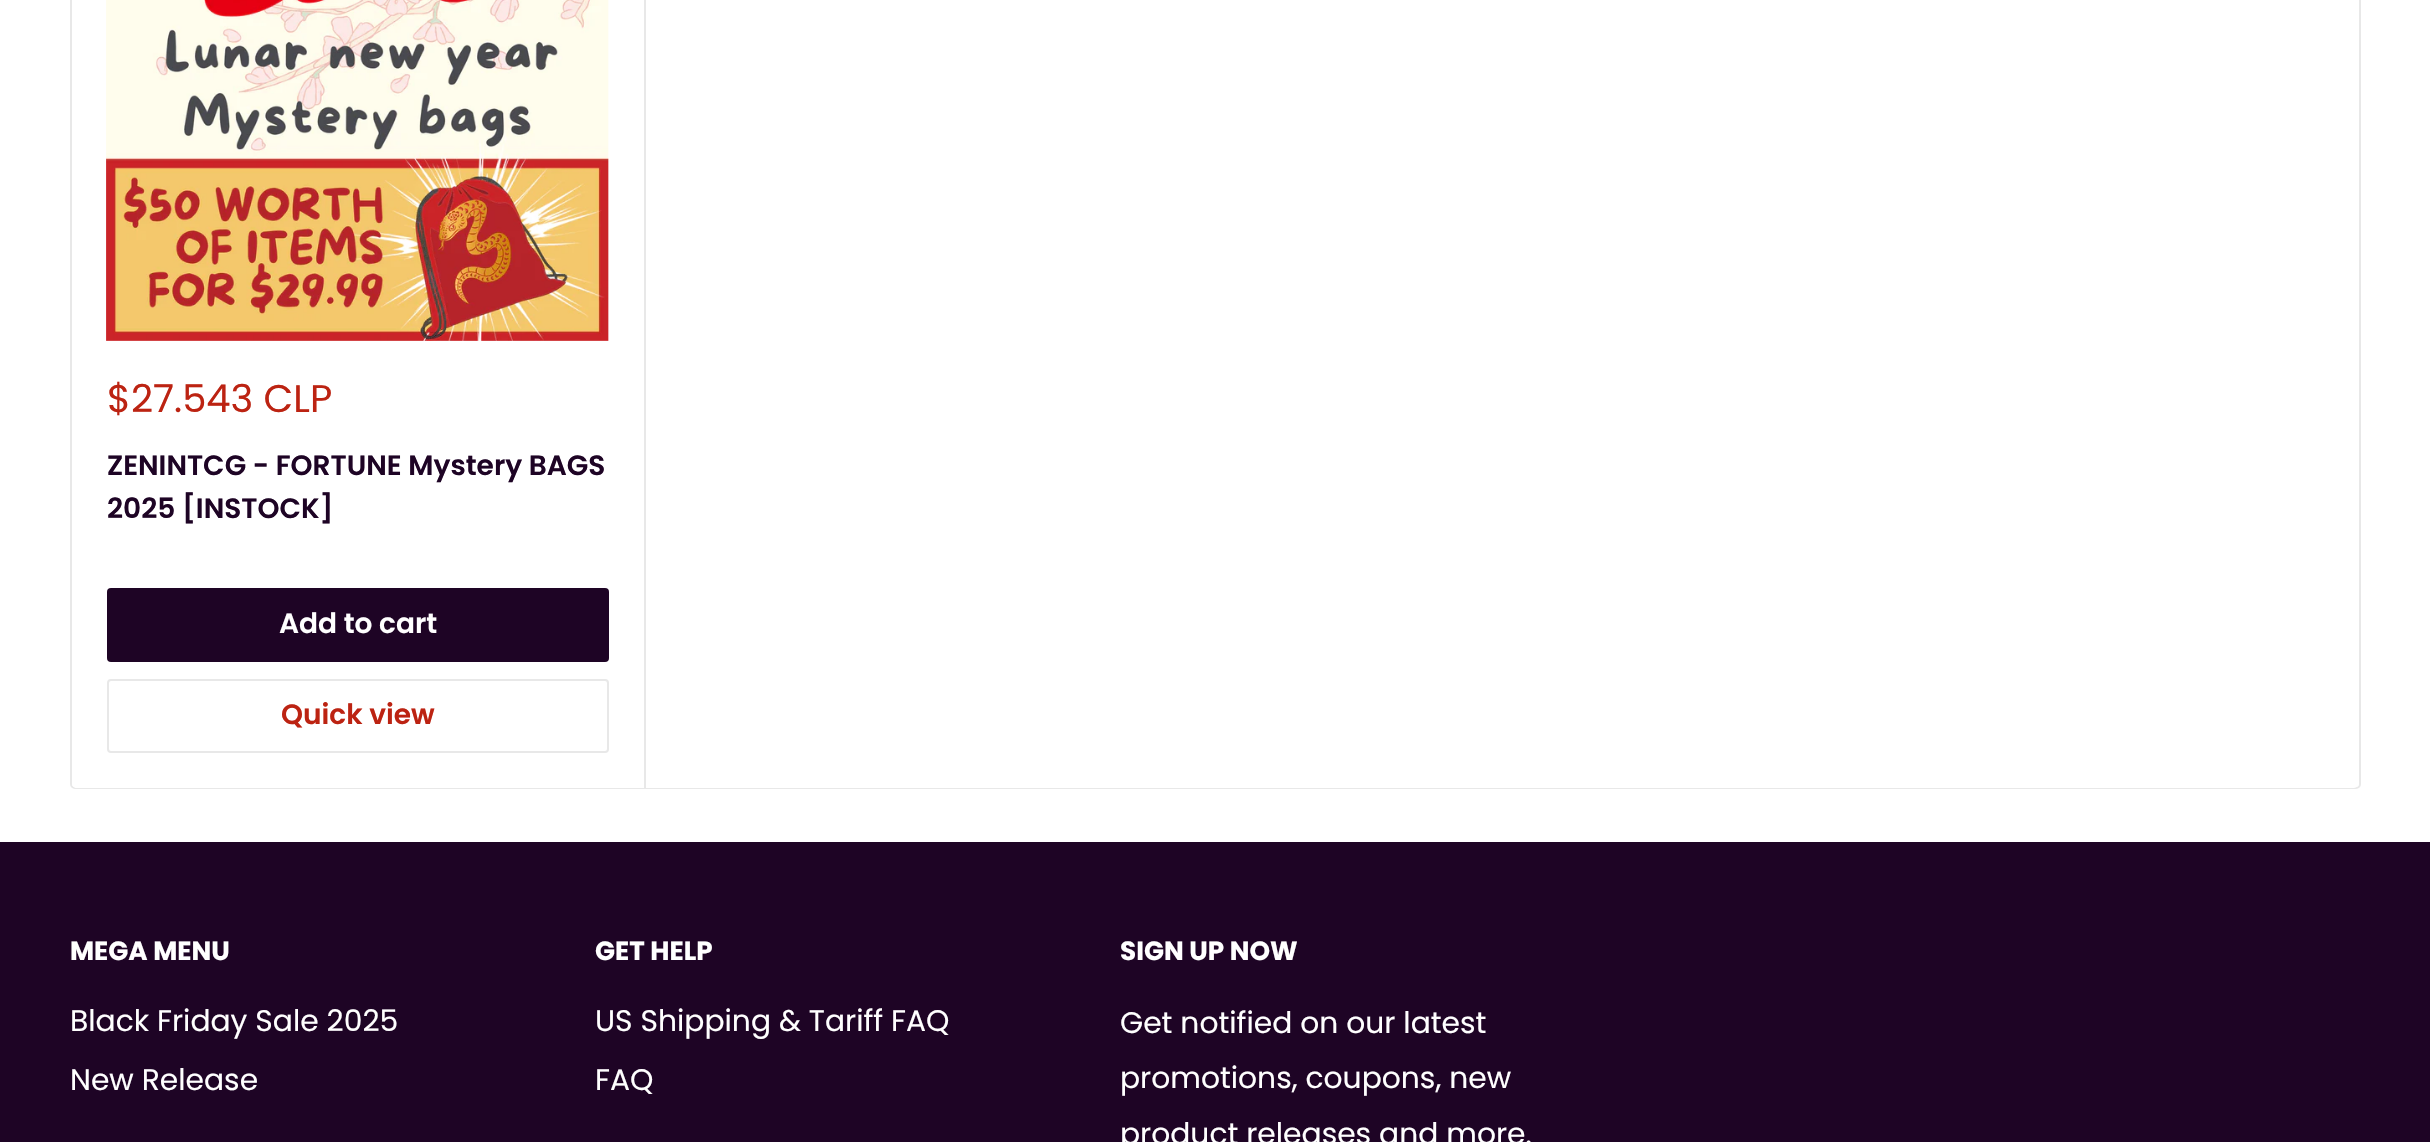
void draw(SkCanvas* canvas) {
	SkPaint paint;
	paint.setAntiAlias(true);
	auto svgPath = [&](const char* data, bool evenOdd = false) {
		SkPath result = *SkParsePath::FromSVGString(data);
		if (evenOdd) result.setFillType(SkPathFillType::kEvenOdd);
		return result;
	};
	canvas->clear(0xffffffff);
	paint.setStroke(true);
	paint.setStrokeWidth(2);
	paint.setColor(0xffe8e8e8);
	canvas->drawRoundRect(SkRect::MakeXYWH(71, -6, 2289, 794), 4, 4, paint);
	paint.setStroke(false);
	paint.setColor(0xffffffff);
	canvas->drawRoundRect(SkRect::MakeXYWH(72, -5, 2287, 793), 5, 5, paint);
	canvas->drawPath(svgPath("M77-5H644V788H77C74 788 72 786 72 783V0C72-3 74-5 77-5Z"), paint);
	canvas->drawImageRect(SkImages::DeferredFromEncodedData(SkData::MakeFromFileName("img1.png")), SkRect::MakeXYWH(106, 0, 503, 341), SkSamplingOptions());
	paint.setColor(0xffe8e8e8);
	canvas->drawPath(svgPath("M77-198H646V788H77H75H644V-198H75Z"), paint);
	SkFont f1(fontMgr->matchFamilyStyle("Poppins", SkFontStyle::Normal()), 38.5);
	f1.setSubpixel(true);
	paint.setColor(0xffbc2312);
	canvas->drawString("$27.543 CLP", 107, 412, f1, paint);
	SkFont f2(fontMgr->matchFamilyStyle("Poppins", SkFontStyle(600, SkFontStyle::kNormal_Width, SkFontStyle::kUpright_Slant)), 28);
	f2.setSubpixel(true);
	paint.setColor(0xff1e0425);
	canvas->drawString("ZENINTCG - FORTUNE Mystery BAGS", 107, 475, f2, paint);
	canvas->drawString("2025 [INSTOCK]", 107, 518, f2, paint);
	canvas->drawRoundRect(SkRect::MakeXYWH(107, 588, 502, 74), 4, 4, paint);
	paint.setColor(0xffffffff);
	canvas->drawString("Add to cart", 279, 633, f2, paint);
	paint.setStroke(true);
	paint.setColor(0xffe8e8e8);
	canvas->drawRoundRect(SkRect::MakeXYWH(108, 680, 500, 72), 3, 3, paint);
	paint.setStroke(false);
	paint.setColor(0xffbc2312);
	canvas->drawString("Quick view", 281, 724, f2, paint);
	paint.setColor(0xff1e0425);
	canvas->drawRect(SkRect::MakeXYWH(0, 842, 2430, 300), paint);
	SkFont f3(fontMgr->matchFamilyStyle("Poppins", SkFontStyle::Bold()), 26.25);
	f3.setSubpixel(true);
	paint.setColor(0xffffffff);
	canvas->drawString("MEGA MENU", 70, 960, f3, paint);
	SkFont f4(fontMgr->matchFamilyStyle("Poppins", SkFontStyle::Normal()), 29.75);
	f4.setSubpixel(true);
	canvas->drawString("Black Friday Sale 2025", 70, 1031, f4, paint);
	canvas->drawString("New Release", 70, 1090, f4, paint);
	canvas->drawString("GET HELP", 595, 960, f3, paint);
	canvas->drawString("US Shipping & Tariff FAQ", 595, 1031, f4, paint);
	canvas->drawString("FAQ", 595, 1090, f4, paint);
	canvas->drawString("SIGN UP NOW", 1120, 960, f3, paint);
	canvas->drawString("Get notified on our latest", 1120, 1033, f4, paint);
	canvas->drawString("promotions, coupons, new", 1120, 1088, f4, paint);
	canvas->drawString("product releases and more.", 1120, 1144, f4, paint);
}
